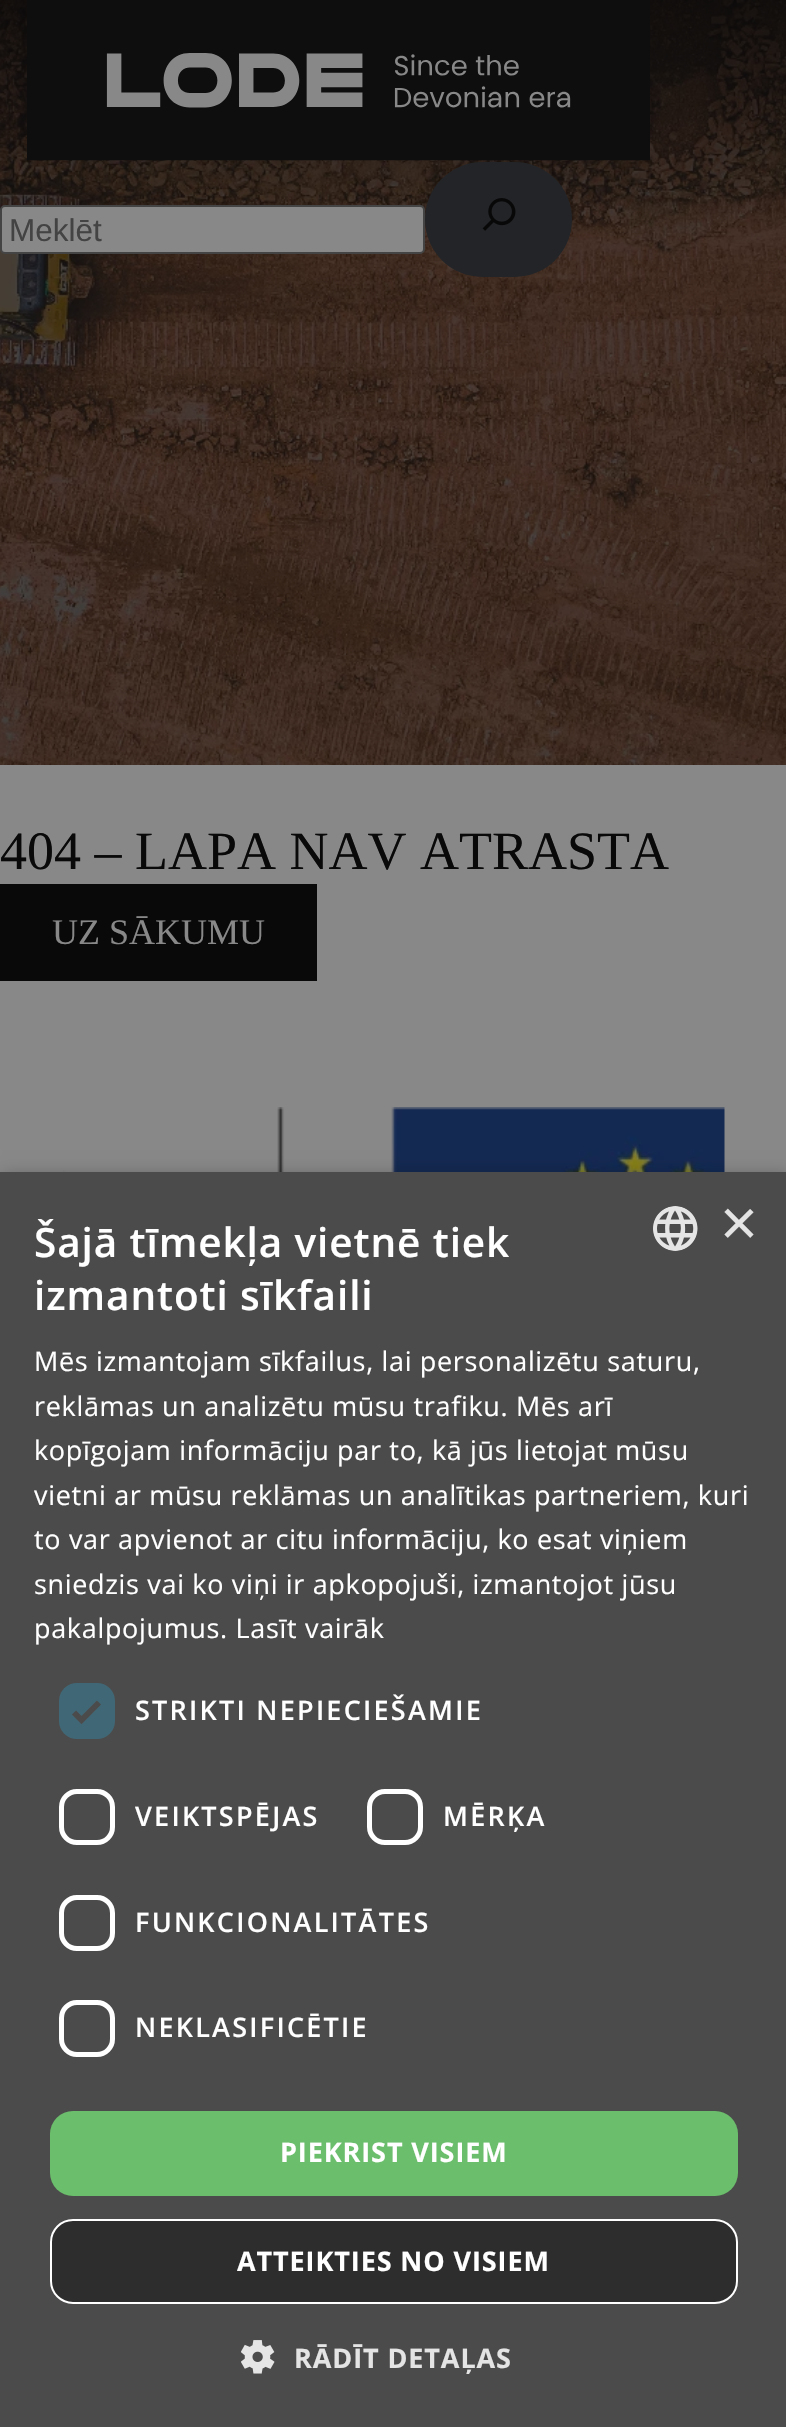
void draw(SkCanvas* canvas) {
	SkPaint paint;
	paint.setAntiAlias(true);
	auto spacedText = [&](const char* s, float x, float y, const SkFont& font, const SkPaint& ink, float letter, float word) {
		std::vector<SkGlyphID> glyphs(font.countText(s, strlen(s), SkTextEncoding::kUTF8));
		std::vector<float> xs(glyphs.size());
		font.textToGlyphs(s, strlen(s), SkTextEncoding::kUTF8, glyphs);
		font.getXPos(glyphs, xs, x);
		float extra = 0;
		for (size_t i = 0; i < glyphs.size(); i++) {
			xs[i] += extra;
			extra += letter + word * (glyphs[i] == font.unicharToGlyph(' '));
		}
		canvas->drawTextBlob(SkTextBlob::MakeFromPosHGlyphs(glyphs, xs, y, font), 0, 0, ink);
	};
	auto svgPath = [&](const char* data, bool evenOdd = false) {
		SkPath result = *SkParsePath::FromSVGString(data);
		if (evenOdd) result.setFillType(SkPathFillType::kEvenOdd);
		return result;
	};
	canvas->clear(0xff888888);
	canvas->drawImageRect(SkImages::DeferredFromEncodedData(SkData::MakeFromFileName("img1.png")), SkRect::MakeXYWH(0, 0, 786, 765), SkSamplingOptions());
	canvas->drawImageRect(SkImages::DeferredFromEncodedData(SkData::MakeFromFileName("img2.png")), SkRect::MakeXYWH(27, 0, 623, 161), SkSamplingOptions());
	paint.setColor(0xff888888);
	canvas->drawRoundRect(SkRect::MakeXYWH(1, 206, 423, 47), 4, 4, paint);
	paint.setStroke(true);
	paint.setStrokeWidth(2);
	paint.setColor(0xff444444);
	canvas->drawRoundRect(SkRect::MakeXYWH(1, 206, 423, 47), 4, 4, paint);
	SkFont f1(fontMgr->matchFamilyStyle("Liberation Sans", SkFontStyle::Normal()), 31.5);
	f1.setSubpixel(true);
	paint.setStroke(false);
	paint.setColor(0xff434343);
	canvas->drawString("Meklēt", 9, 241, f1, paint);
	paint.setColor(0xff222427);
	canvas->drawRoundRect(SkRect::MakeXYWH(425, 162, 147, 115), 57.5, 57.5, paint);
	canvas->drawImageRect(SkImages::DeferredFromEncodedData(SkData::MakeFromFileName("img3.png")), SkRect::MakeXYWH(482, 198, 34, 33), SkSamplingOptions());
	SkFont f2(fontMgr->matchFamilyStyle("Liberation Serif", SkFontStyle::Normal()), 54);
	f2.setSubpixel(true);
	paint.setColor(0xff090909);
	canvas->drawString("404 – LAPA NAV ATRASTA", 0, 869, f2, paint);
	canvas->drawRect(SkRect::MakeXYWH(0, 884, 317, 97), paint);
	SkFont f3(fontMgr->matchFamilyStyle("Liberation Serif", SkFontStyle::Normal()), 36);
	f3.setSubpixel(true);
	paint.setColor(0xff888888);
	canvas->drawString("UZ SĀKUMU", 52, 944, f3, paint);
	canvas->drawImageRect(SkImages::DeferredFromEncodedData(SkData::MakeFromFileName("img4.png")), SkRect::MakeXYWH(63, 1107, 662, 65), SkSamplingOptions());
	paint.setColor(0x59000000);
	paint.setMaskFilter(SkMaskFilter::MakeBlur(kNormal_SkBlurStyle, 9));
	canvas->drawRect(SkRect::MakeXYWH(2, 1177, 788, 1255), paint);
	paint.setMaskFilter(nullptr);
	paint.setColor(0xff4b4b4b);
	canvas->drawRect(SkRect::MakeXYWH(0, 1172, 786, 1255), paint);
	SkFont f4(fontMgr->matchFamilyStyle("Open Sans", SkFontStyle(600, SkFontStyle::kNormal_Width, SkFontStyle::kUpright_Slant)), 40.5);
	f4.setSubpixel(true);
	paint.setColor(0xffffffff);
	spacedText("Šajā tīmekļa vietnē tiek", 34, 1257, f4, paint, 0.9, 0);
	spacedText("izmantoti sīkfaili", 34, 1310, f4, paint, 0.9, 0);
	canvas->drawImageRect(SkImages::DeferredFromEncodedData(SkData::MakeFromFileName("img5.png")), SkRect::MakeXYWH(653, 1206, 45, 45), SkSamplingOptions());
	SkFont f5(fontMgr->matchFamilyStyle("Liberation Sans", SkFontStyle::Normal()), 65);
	f5.setSubpixel(true);
	paint.setColor(0xffe4e4e4);
	canvas->drawString("×", 720, 1245, f5, paint);
	SkFont f6(fontMgr->matchFamilyStyle("Open Sans", SkFontStyle::Normal()), 27);
	f6.setSubpixel(true);
	paint.setColor(0xffffffff);
	spacedText("Mēs izmantojam sīkfailus, lai personalizētu saturu,", 34, 1371, f6, paint, 0.67, 0);
	spacedText("reklāmas un analizētu mūsu trafiku. Mēs arī", 34, 1416, f6, paint, 0.67, 0);
	spacedText("kopīgojam informāciju par to, kā jūs lietojat mūsu", 34, 1460, f6, paint, 0.67, 0);
	spacedText("vietni ar mūsu reklāmas un analītikas partneriem, kuri", 34, 1505, f6, paint, 0.67, 0);
	spacedText("to var apvienot ar citu informāciju, ko esat viņiem", 34, 1549, f6, paint, 0.67, 0);
	spacedText("sniedzis vai ko viņi ir apkopojuši, izmantojot jūsu", 34, 1594, f6, paint, 0.67, 0);
	spacedText("pakalpojumus. Lasīt vairāk", 34, 1638, f6, paint, 0.67, 0);
	paint.setColor(0xff406776);
	canvas->drawRoundRect(SkRect::MakeXYWH(59, 1683, 56, 56), 18, 18, paint);
	paint.setStroke(true);
	paint.setStrokeWidth(5.9);
	paint.setColor(0xff4b4b4b);
	canvas->drawPath(svgPath("M74 1712.5L81.5 1720L99 1702.5"), paint);
	SkFont f7(fontMgr->matchFamilyStyle("Open Sans", SkFontStyle(600, SkFontStyle::kNormal_Width, SkFontStyle::kUpright_Slant)), 27);
	f7.setSubpixel(true);
	paint.setStroke(false);
	paint.setColor(0xffffffff);
	spacedText("STRIKTI NEPIECIEŠAMIE", 135, 1720, f7, paint, 2.25, 0);
	paint.setStroke(true);
	paint.setStrokeWidth(5);
	canvas->drawRoundRect(SkRect::MakeXYWH(61.5, 1791.5, 51, 51), 15.5, 15.5, paint);
	paint.setStroke(false);
	spacedText("VEIKTSPĒJAS", 135, 1826, f7, paint, 2.25, 0);
	paint.setStroke(true);
	canvas->drawRoundRect(SkRect::MakeXYWH(369.5, 1791.5, 51, 51), 15.5, 15.5, paint);
	paint.setStroke(false);
	spacedText("MĒRĶA", 443, 1826, f7, paint, 2.25, 0);
	paint.setStroke(true);
	canvas->drawRoundRect(SkRect::MakeXYWH(61.5, 1897.5, 51, 51), 15.5, 15.5, paint);
	paint.setStroke(false);
	spacedText("FUNKCIONALITĀTES", 135, 1932, f7, paint, 2.25, 0);
	paint.setStroke(true);
	canvas->drawRoundRect(SkRect::MakeXYWH(61.5, 2002.5, 51, 52), 15.5, 15.5, paint);
	paint.setStroke(false);
	spacedText("NEKLASIFICĒTIE", 135, 2037, f7, paint, 2.25, 0);
	paint.setColor(0xff6bbe6b);
	canvas->drawRoundRect(SkRect::MakeXYWH(50, 2111, 688, 85), 23, 23, paint);
	SkFont f8(fontMgr->matchFamilyStyle("Open Sans", SkFontStyle::Bold()), 27);
	f8.setSubpixel(true);
	paint.setColor(0xffffffff);
	spacedText("PIEKRIST VISIEM", 280, 2162, f8, paint, 0.9, 0);
	paint.setColor(0xff2d2d2d);
	canvas->drawRoundRect(SkRect::MakeXYWH(51, 2220, 686, 83), 22, 22, paint);
	paint.setStroke(true);
	paint.setStrokeWidth(2);
	paint.setColor(0xffffffff);
	canvas->drawRoundRect(SkRect::MakeXYWH(51, 2220, 686, 83), 22, 22, paint);
	paint.setStroke(false);
	spacedText("ATTEIKTIES NO VISIEM", 237, 2271, f8, paint, 0.9, 0);
	canvas->drawImageRect(SkImages::DeferredFromEncodedData(SkData::MakeFromFileName("img6.png")), SkRect::MakeXYWH(241, 2340, 34, 34), SkSamplingOptions());
	paint.setColor(0xffe4e4e4);
	spacedText("RĀDĪT DETAĻAS", 294, 2368, f8, paint, 0.9, 0);
}
